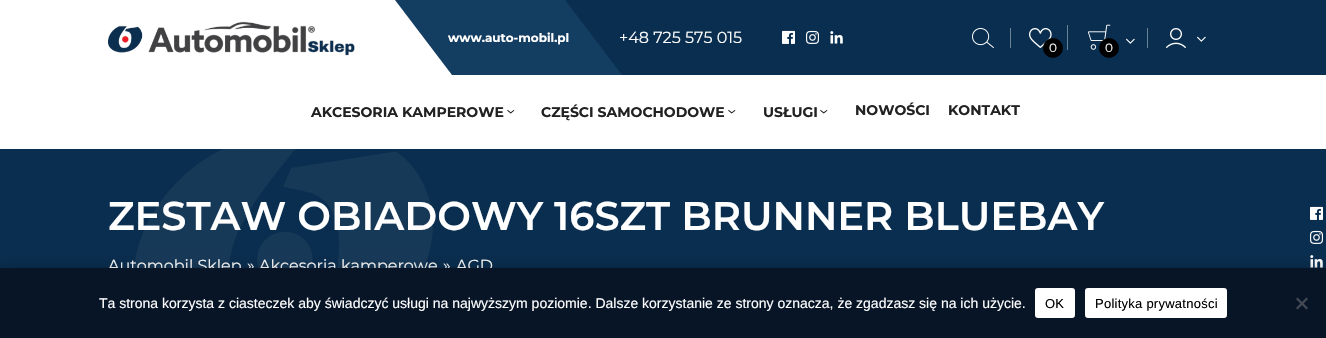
void draw(SkCanvas* canvas) {
	SkPaint paint;
	paint.setAntiAlias(true);
	auto spacedText = [&](const char* s, float x, float y, const SkFont& font, const SkPaint& ink, float letter, float word) {
		std::vector<SkGlyphID> glyphs(font.countText(s, strlen(s), SkTextEncoding::kUTF8));
		std::vector<float> xs(glyphs.size());
		font.textToGlyphs(s, strlen(s), SkTextEncoding::kUTF8, glyphs);
		font.getXPos(glyphs, xs, x);
		float extra = 0;
		for (size_t i = 0; i < glyphs.size(); i++) {
			xs[i] += extra;
			extra += letter + word * (glyphs[i] == font.unicharToGlyph(' '));
		}
		canvas->drawTextBlob(SkTextBlob::MakeFromPosHGlyphs(glyphs, xs, y, font), 0, 0, ink);
	};
	auto svgPath = [&](const char* data, bool evenOdd = false) {
		SkPath result = *SkParsePath::FromSVGString(data);
		if (evenOdd) result.setFillType(SkPathFillType::kEvenOdd);
		return result;
	};
	canvas->clear(0xffffffff);
	canvas->drawImageRect(SkImages::DeferredFromEncodedData(SkData::MakeFromFileName("img1.png")), SkRect::MakeXYWH(108, 21, 247, 35), SkSamplingOptions());
	paint.setColor(0xff0a2e4f);
	canvas->drawRect(SkRect::MakeXYWH(565, 0, 761, 75), paint);
	SkFont f1(fontMgr->matchFamilyStyle("Montserrat", SkFontStyle::Normal()), 16);
	f1.setSubpixel(true);
	paint.setColor(0xffffffff);
	canvas->drawString("+48 725 575 015", 619, 43, f1, paint);
	paint.setColor(0xff143d62);
	canvas->drawPath(svgPath("M395 0H565L622 75H452Z"), paint);
	SkFont f2(fontMgr->matchFamilyStyle("Montserrat", SkFontStyle::Bold()), 12);
	f2.setSubpixel(true);
	paint.setColor(0xffffffff);
	canvas->drawString("www.auto-mobil.pl", 448, 42, f2, paint);
	canvas->drawImageRect(SkImages::DeferredFromEncodedData(SkData::MakeFromFileName("img2.png")), SkRect::MakeXYWH(782, 30, 13, 14), SkSamplingOptions());
	canvas->drawImageRect(SkImages::DeferredFromEncodedData(SkData::MakeFromFileName("img3.png")), SkRect::MakeXYWH(806, 30, 13, 14), SkSamplingOptions());
	canvas->drawImageRect(SkImages::DeferredFromEncodedData(SkData::MakeFromFileName("img4.png")), SkRect::MakeXYWH(830, 31, 13, 13), SkSamplingOptions());
	canvas->drawImageRect(SkImages::DeferredFromEncodedData(SkData::MakeFromFileName("img5.png")), SkRect::MakeXYWH(972, 28, 22, 20), SkSamplingOptions());
	paint.setColor(0xff6c8295);
	canvas->drawRect(SkRect::MakeXYWH(1010, 28, 1, 20), paint);
	canvas->drawImageRect(SkImages::DeferredFromEncodedData(SkData::MakeFromFileName("img6.png")), SkRect::MakeXYWH(1029, 28, 23, 20), SkSamplingOptions());
	paint.setColor(0xff000000);
	canvas->drawCircle(1053, 48, 10, paint);
	SkFont f3(fontMgr->matchFamilyStyle("Montserrat", SkFontStyle::Normal()), 12);
	f3.setSubpixel(true);
	paint.setColor(0xffffffff);
	canvas->drawString("0", 1049, 52, f3, paint);
	canvas->drawImageRect(SkImages::DeferredFromEncodedData(SkData::MakeFromFileName("img7.png")), SkRect::MakeXYWH(1126, 38, 9, 6), SkSamplingOptions());
	paint.setColor(0xff6c8295);
	canvas->drawRect(SkRect::MakeXYWH(1067, 25, 1, 25), paint);
	canvas->drawImageRect(SkImages::DeferredFromEncodedData(SkData::MakeFromFileName("img8.png")), SkRect::MakeXYWH(1088, 24, 23, 26), SkSamplingOptions());
	paint.setColor(0xff000000);
	canvas->drawCircle(1109, 48, 10, paint);
	paint.setColor(0xffffffff);
	canvas->drawString("0", 1105, 52, f3, paint);
	paint.setColor(0xff6c8295);
	canvas->drawRect(SkRect::MakeXYWH(1147, 28, 1, 20), paint);
	canvas->drawImageRect(SkImages::DeferredFromEncodedData(SkData::MakeFromFileName("img9.png")), SkRect::MakeXYWH(1166, 28, 20, 20), SkSamplingOptions());
	canvas->drawImageRect(SkImages::DeferredFromEncodedData(SkData::MakeFromFileName("img7.png")), SkRect::MakeXYWH(1197, 36, 9, 6), SkSamplingOptions());
	SkFont f4(fontMgr->matchFamilyStyle("Montserrat", SkFontStyle::Bold()), 14);
	f4.setSubpixel(true);
	paint.setColor(0xff222222);
	canvas->drawString("AKCESORIA KAMPEROWE", 311, 117, f4, paint);
	SkFont f5(fontMgr->matchFamilyStyle("Montserrat", SkFontStyle::Normal()), 18);
	f5.setSubpixel(true);
	canvas->save();
	canvas->rotate(90, 506, 109);
	canvas->drawString("›", 506, 109, f5, paint);
	canvas->restore();
	canvas->drawString("CZĘŚCI SAMOCHODOWE", 541, 117, f4, paint);
	canvas->save();
	canvas->rotate(90, 727, 109);
	canvas->drawString("›", 727, 109, f5, paint);
	canvas->restore();
	canvas->drawString("USŁUGI", 763, 117, f4, paint);
	canvas->save();
	canvas->rotate(90, 819, 109);
	canvas->drawString("›", 819, 109, f5, paint);
	canvas->restore();
	canvas->drawString("NOWOŚCI", 855, 115, f4, paint);
	canvas->drawString("KONTAKT", 948, 115, f4, paint);
	paint.setColor(0xff0a2e4f);
	canvas->drawRect(SkRect::MakeXYWH(0, 149, 1326, 119), paint);
	SkFont f6(fontMgr->matchFamilyStyle("Montserrat", SkFontStyle(600, SkFontStyle::kNormal_Width, SkFontStyle::kUpright_Slant)), 40);
	f6.setSubpixel(true);
	paint.setColor(0xffffffff);
	canvas->drawString("ZESTAW OBIADOWY 16SZT BRUNNER BLUEBAY", 108, 230, f6, paint);
	canvas->drawString("»", 247, 271, f1, paint);
	canvas->drawImageRect(SkImages::DeferredFromEncodedData(SkData::MakeFromFileName("img10.png")), SkRect::MakeXYWH(134, 149, 299, 119), SkSamplingOptions());
	canvas->drawString("Automobil Sklep", 108, 271, f1, paint);
	canvas->drawString("Akcesoria kamperowe", 259, 271, f1, paint);
	canvas->drawString("»", 443, 271, f1, paint);
	canvas->drawString("AGD", 456, 271, f1, paint);
	canvas->drawImageRect(SkImages::DeferredFromEncodedData(SkData::MakeFromFileName("img2.png")), SkRect::MakeXYWH(1310, 206, 13, 14), SkSamplingOptions());
	canvas->drawImageRect(SkImages::DeferredFromEncodedData(SkData::MakeFromFileName("img3.png")), SkRect::MakeXYWH(1310, 230, 13, 14), SkSamplingOptions());
	canvas->drawImageRect(SkImages::DeferredFromEncodedData(SkData::MakeFromFileName("img4.png")), SkRect::MakeXYWH(1310, 255, 13, 13), SkSamplingOptions());
	paint.setColor(0x40000000);
	paint.setMaskFilter(SkMaskFilter::MakeBlur(kNormal_SkBlurStyle, 6.5));
	canvas->drawRect(SkRect::MakeXYWH(0, 268, 1326, 70), paint);
	paint.setMaskFilter(nullptr);
	paint.setColor(0xff071527);
	canvas->drawRect(SkRect::MakeXYWH(0, 268, 1326, 70), paint);
	SkFont f7(fontMgr->matchFamilyStyle("Liberation Sans", SkFontStyle::Normal()), 14);
	f7.setSubpixel(true);
	paint.setColor(0xffffffff);
	canvas->drawString("Ta strona korzysta z ciasteczek aby świadczyć usługi na najwyższym poziomie. Dalsze korzystanie ze strony oznacza, że zgadzasz się na ich użycie.", 99, 308, f7, paint);
	canvas->drawRoundRect(SkRect::MakeXYWH(1035, 288, 40, 30), 3, 3, paint);
	SkFont f8(fontMgr->matchFamilyStyle("Liberation Sans", SkFontStyle::Normal()), 13);
	f8.setSubpixel(true);
	paint.setColor(0xff000000);
	spacedText("OK", 1045, 308, f8, paint, 0.25, 0);
	paint.setColor(0xffffffff);
	canvas->drawRoundRect(SkRect::MakeXYWH(1085, 288, 142, 30), 3, 3, paint);
	paint.setColor(0xff000000);
	spacedText("Polityka prywatności", 1095, 308, f8, paint, 0.25, 0);
	paint.setColor(0xff444b54);
	canvas->drawPath(svgPath("M1306.5 297.5L1308 299L1297.5 309.5L1296 308Z"), paint);
	canvas->drawPath(svgPath("M1296 299L1297.5 297.5L1308 308L1306.5 309.5Z"), paint);
}
